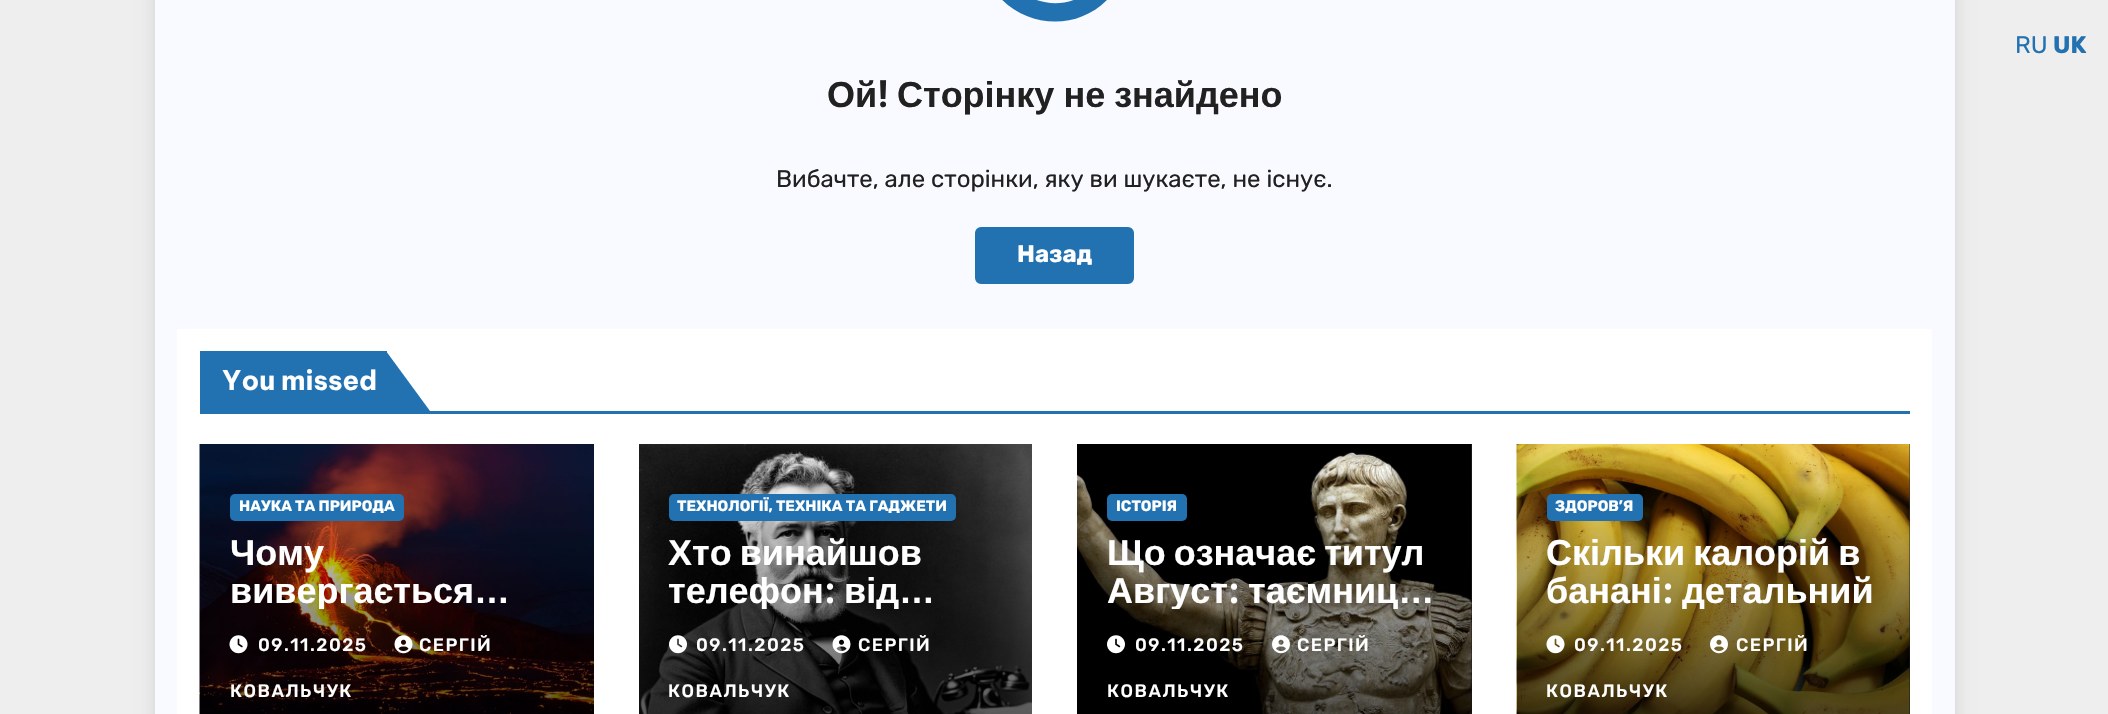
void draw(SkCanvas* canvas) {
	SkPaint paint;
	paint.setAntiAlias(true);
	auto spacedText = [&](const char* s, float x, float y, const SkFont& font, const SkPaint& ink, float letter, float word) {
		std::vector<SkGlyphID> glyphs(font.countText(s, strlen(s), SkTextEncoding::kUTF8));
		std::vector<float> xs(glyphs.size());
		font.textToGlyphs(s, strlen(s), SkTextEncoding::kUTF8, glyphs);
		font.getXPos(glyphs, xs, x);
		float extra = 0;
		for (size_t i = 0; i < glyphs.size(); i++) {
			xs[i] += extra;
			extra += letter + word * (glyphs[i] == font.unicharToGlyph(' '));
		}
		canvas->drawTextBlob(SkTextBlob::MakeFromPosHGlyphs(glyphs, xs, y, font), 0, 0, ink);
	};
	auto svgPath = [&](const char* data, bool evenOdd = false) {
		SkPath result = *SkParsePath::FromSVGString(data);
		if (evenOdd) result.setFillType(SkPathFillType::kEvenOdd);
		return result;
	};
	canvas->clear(0xffeeeeee);
	SkFont f1(fontMgr->matchFamilyStyle("Rubik", SkFontStyle::Normal()), 24);
	f1.setSubpixel(true);
	paint.setColor(0xff2271b1);
	canvas->drawString("RU", 2015, 53, f1, paint);
	SkFont f2(fontMgr->matchFamilyStyle("Rubik", SkFontStyle::Bold()), 24);
	f2.setSubpixel(true);
	canvas->drawString("UK", 2053, 53, f2, paint);
	paint.setColor(0x1f000000);
	paint.setMaskFilter(SkMaskFilter::MakeBlur(kNormal_SkBlurStyle, 7.5));
	canvas->drawRect(SkRect::MakeXYWH(155, -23, 1800, 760), paint);
	paint.setMaskFilter(nullptr);
	paint.setColor(0xfff9faff);
	canvas->drawRect(SkRect::MakeXYWH(155, 0, 1800, 714), paint);
	paint.setColor(0xff2271b1);
	canvas->drawPath(svgPath("M1087-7L1009-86C1003-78 999-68 998-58C994-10 1049 20 1087-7ZM1100-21C1128-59 1097-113 1050-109C1040-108 1030-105 1022-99ZM980-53C981-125 1070-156 1114-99C1124-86 1130-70 1130-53C1130-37 1124-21 1114-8C1070 49 981 18 980-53Z"), paint);
	SkFont f3(fontMgr->matchFamilyStyle("Liberation Sans", SkFontStyle::Bold()), 36);
	f3.setSubpixel(true);
	paint.setColor(0xff212121);
	canvas->drawString("Ой", 827, 107, f3, paint);
	SkFont f4(fontMgr->matchFamilyStyle("Be Vietnam Pro", SkFontStyle::Bold()), 36);
	f4.setSubpixel(true);
	canvas->drawString("!", 877, 107, f4, paint);
	spacedText("Сторінку не знайдено", 897, 107, f3, paint, 0, -1);
	canvas->drawString("Вибачте, але сторінки, яку ви шукаєте, не існує.", 776, 187, f1, paint);
	paint.setColor(0xff2271b1);
	canvas->drawRoundRect(SkRect::MakeXYWH(976.5, 228.5, 156, 54), 4.5, 4.5, paint);
	paint.setStroke(true);
	paint.setStrokeWidth(3);
	canvas->drawRoundRect(SkRect::MakeXYWH(976.5, 228.5, 156, 54), 4.5, 4.5, paint);
	paint.setStroke(false);
	paint.setColor(0xffffffff);
	canvas->drawString("Назад", 1017, 262, f2, paint);
	canvas->drawRect(SkRect::MakeXYWH(177, 329, 1755, 385), paint);
	paint.setColor(0xff2271b1);
	canvas->drawRect(SkRect::MakeXYWH(200, 411, 1710, 3), paint);
	canvas->drawRect(SkRect::MakeXYWH(200, 351, 187, 60), paint);
	SkFont f5(fontMgr->matchFamilyStyle("Be Vietnam Pro", SkFontStyle::Bold()), 27);
	f5.setSubpixel(true);
	paint.setColor(0xffffffff);
	canvas->drawString("You missed", 222, 390, f5, paint);
	paint.setColor(0xff2271b1);
	canvas->drawPath(svgPath("M386 411V351L430 411Z"), paint);
	canvas->drawImageRect(SkImages::DeferredFromEncodedData(SkData::MakeFromFileName("img1.png")), SkRect::MakeXYWH(199, 444, 395, 270), SkSamplingOptions());
	canvas->drawRoundRect(SkRect::MakeXYWH(230, 494, 174, 27), 5, 5, paint);
	SkFont f6(fontMgr->matchFamilyStyle("Rubik", SkFontStyle::Bold()), 15);
	f6.setSubpixel(true);
	paint.setColor(0xffffffff);
	canvas->drawString("НАУКА ТА ПРИРОДА", 239, 511, f6, paint);
	canvas->drawString("Чому", 230, 565, f3, paint);
	canvas->save();
	canvas->clipRect(SkRect::MakeXYWH(230, 534, 334, 75));
	canvas->drawString("вивергається…", 230, 603, f3, paint);
	canvas->restore();
	canvas->drawImageRect(SkImages::DeferredFromEncodedData(SkData::MakeFromFileName("img2.png")), SkRect::MakeXYWH(394, 635, 19, 19), SkSamplingOptions());
	SkFont f7(fontMgr->matchFamilyStyle("Rubik", SkFontStyle(500, SkFontStyle::kNormal_Width, SkFontStyle::kUpright_Slant)), 18);
	f7.setSubpixel(true);
	spacedText("СЕРГІЙ", 419, 651, f7, paint, 1.5, 0);
	spacedText("КОВАЛЬЧУК", 230, 697, f7, paint, 1.5, 0);
	canvas->drawImageRect(SkImages::DeferredFromEncodedData(SkData::MakeFromFileName("img3.png")), SkRect::MakeXYWH(229, 635, 19, 19), SkSamplingOptions());
	spacedText("09.11.2025", 258, 651, f7, paint, 1.5, 0);
	canvas->drawImageRect(SkImages::DeferredFromEncodedData(SkData::MakeFromFileName("img4.png")), SkRect::MakeXYWH(639, 444, 393, 270), SkSamplingOptions());
	paint.setColor(0xff2271b1);
	canvas->drawRoundRect(SkRect::MakeXYWH(669, 494, 287, 27), 5, 5, paint);
	paint.setColor(0xffffffff);
	canvas->drawString("ТЕХНОЛОГІЇ, ТЕХНІКА ТА ГАДЖЕТИ", 677, 511, f6, paint);
	spacedText("Хто винайшов", 668, 565, f3, paint, 0, -2);
	canvas->save();
	canvas->clipRect(SkRect::MakeXYWH(669, 534, 333, 75));
	canvas->drawString("телефон", 668, 603, f3, paint);
	canvas->restore();
	canvas->drawString(":", 824, 603, f4, paint);
	canvas->save();
	canvas->clipRect(SkRect::MakeXYWH(669, 534, 333, 75));
	canvas->drawString("від…", 844, 603, f3, paint);
	canvas->restore();
	canvas->drawImageRect(SkImages::DeferredFromEncodedData(SkData::MakeFromFileName("img5.png")), SkRect::MakeXYWH(832, 635, 19, 19), SkSamplingOptions());
	spacedText("СЕРГІЙ", 858, 651, f7, paint, 1.5, 0);
	spacedText("КОВАЛЬЧУК", 668, 697, f7, paint, 1.5, 0);
	canvas->drawImageRect(SkImages::DeferredFromEncodedData(SkData::MakeFromFileName("img6.png")), SkRect::MakeXYWH(669, 635, 18, 19), SkSamplingOptions());
	spacedText("09.11.2025", 696, 651, f7, paint, 1.5, 0);
	paint.setColor(0xff333333);
	canvas->drawRect(SkRect::MakeXYWH(1471, 444, 1, 270), paint);
	canvas->drawImageRect(SkImages::DeferredFromEncodedData(SkData::MakeFromFileName("img7.png")), SkRect::MakeXYWH(1077, 444, 395, 270), SkSamplingOptions());
	{
		const SkColor colors[] = {0x00000000, 0x66000000, 0xb3000000};
		const float stops[] = {0, 0.5, 1};
		const SkPoint ends[] = {{1274, 467}, {1274, 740}};
		paint.setShader(SkGradientShader::MakeLinear(ends, colors, stops, 3, SkTileMode::kClamp));
		paint.setAlpha(255);
	}
	canvas->drawRect(SkRect::MakeXYWH(1077, 474, 395, 240), paint);
	paint.setShader(nullptr);
	paint.setColor(0xff2271b1);
	canvas->drawRoundRect(SkRect::MakeXYWH(1107, 494, 80, 27), 5, 5, paint);
	paint.setColor(0xffffffff);
	canvas->drawString("ІСТОРІЯ", 1116, 511, f6, paint);
	spacedText("Що означає титул", 1107, 565, f3, paint, 0, -2);
	canvas->save();
	canvas->clipRect(SkRect::MakeXYWH(1107, 534, 335, 75));
	canvas->drawString("Август", 1107, 603, f3, paint);
	canvas->restore();
	canvas->drawString(":", 1228, 603, f4, paint);
	canvas->save();
	canvas->clipRect(SkRect::MakeXYWH(1107, 534, 335, 75));
	canvas->drawString("таємниц…", 1248, 603, f3, paint);
	canvas->restore();
	canvas->drawImageRect(SkImages::DeferredFromEncodedData(SkData::MakeFromFileName("img8.png")), SkRect::MakeXYWH(1272, 635, 18, 19), SkSamplingOptions());
	spacedText("СЕРГІЙ", 1297, 651, f7, paint, 1.5, 0);
	spacedText("КОВАЛЬЧУК", 1107, 697, f7, paint, 1.5, 0);
	canvas->drawImageRect(SkImages::DeferredFromEncodedData(SkData::MakeFromFileName("img9.png")), SkRect::MakeXYWH(1107, 635, 18, 19), SkSamplingOptions());
	spacedText("09.11.2025", 1135, 651, f7, paint, 1.5, 0);
	paint.setColor(0xff333333);
	canvas->drawRect(SkRect::MakeXYWH(1909, 444, 1, 270), paint);
	canvas->drawImageRect(SkImages::DeferredFromEncodedData(SkData::MakeFromFileName("img10.png")), SkRect::MakeXYWH(1516, 444, 394, 270), SkSamplingOptions());
	{
		const SkColor colors[] = {0x00000000, 0x66000000, 0xb3000000};
		const float stops[] = {0, 0.5, 1};
		const SkPoint ends[] = {{1713, 467}, {1713, 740}};
		paint.setShader(SkGradientShader::MakeLinear(ends, colors, stops, 3, SkTileMode::kClamp));
		paint.setAlpha(255);
	}
	canvas->drawRect(SkRect::MakeXYWH(1517, 474, 393, 240), paint);
	paint.setShader(nullptr);
	paint.setColor(0xff2271b1);
	canvas->drawRoundRect(SkRect::MakeXYWH(1547, 494, 96, 27), 5, 5, paint);
	paint.setColor(0xffffffff);
	canvas->drawString("ЗДОРОВ’Я", 1555, 511, f6, paint);
	spacedText("Скільки калорій в", 1546, 565, f3, paint, 0, -2);
	canvas->drawString("банані", 1546, 603, f3, paint);
	canvas->drawString(":", 1662, 603, f4, paint);
	canvas->save();
	canvas->clipRect(SkRect::MakeXYWH(1547, 534, 333, 75));
	canvas->drawString("детальний", 1682, 603, f3, paint);
	canvas->restore();
	canvas->drawImageRect(SkImages::DeferredFromEncodedData(SkData::MakeFromFileName("img11.png")), SkRect::MakeXYWH(1710, 635, 18, 19), SkSamplingOptions());
	spacedText("СЕРГІЙ", 1736, 651, f7, paint, 1.5, 0);
	spacedText("КОВАЛЬЧУК", 1546, 697, f7, paint, 1.5, 0);
	canvas->drawImageRect(SkImages::DeferredFromEncodedData(SkData::MakeFromFileName("img12.png")), SkRect::MakeXYWH(1546, 635, 19, 19), SkSamplingOptions());
	spacedText("09.11.2025", 1574, 651, f7, paint, 1.5, 0);
}
